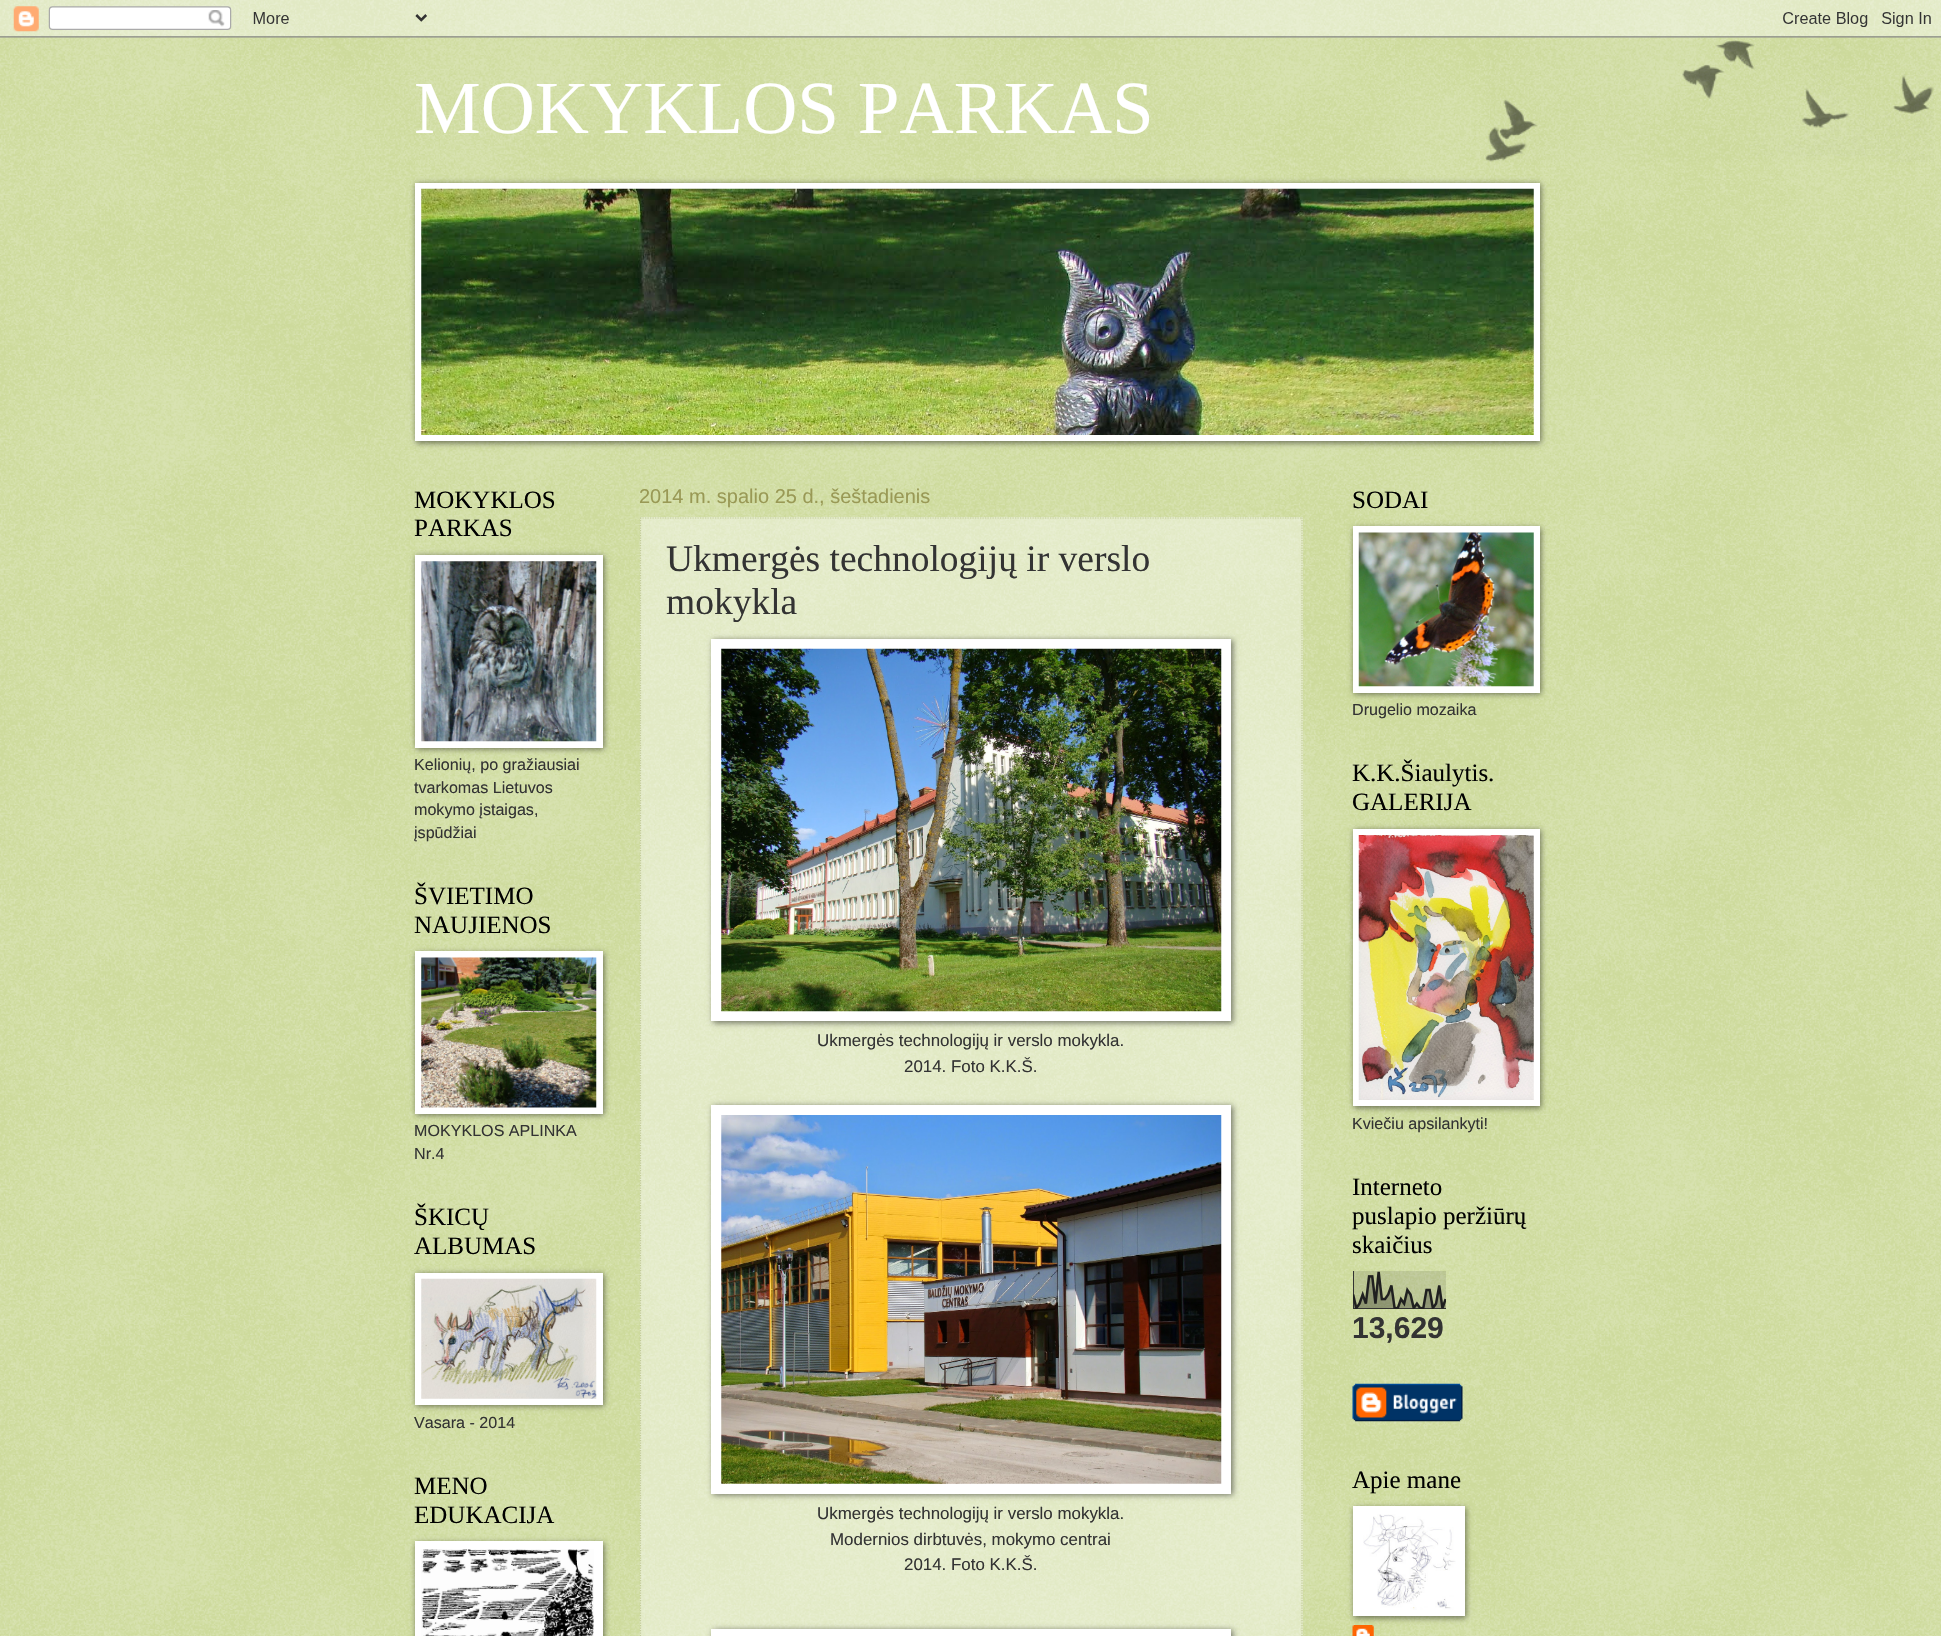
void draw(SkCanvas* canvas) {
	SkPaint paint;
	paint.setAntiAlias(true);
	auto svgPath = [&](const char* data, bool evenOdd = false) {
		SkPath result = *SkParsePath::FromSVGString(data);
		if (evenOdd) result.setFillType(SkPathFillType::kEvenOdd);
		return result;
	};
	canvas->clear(0xffa9c054);
	canvas->drawImageRect(SkImages::DeferredFromEncodedData(SkData::MakeFromFileName("img1.png")), SkRect::MakeXYWH(0, 0, 1941, 1636), SkSamplingOptions());
	canvas->drawImageRect(SkImages::DeferredFromEncodedData(SkData::MakeFromFileName("img2.png")), SkRect::MakeXYWH(0, 0, 1941, 38), SkSamplingOptions());
	SkFont f1(fontMgr->matchFamilyStyle("Liberation Serif", SkFontStyle::Normal()), 75);
	f1.setSubpixel(true);
	paint.setColor(0xffffffff);
	canvas->drawString("MOKYKLOS PARKAS", 414, 133, f1, paint);
	paint.setColor(0x80000000);
	paint.setMaskFilter(SkMaskFilter::MakeBlur(kNormal_SkBlurStyle, 3));
	canvas->drawRect(SkRect::MakeXYWH(416, 184, 1125, 259), paint);
	paint.setMaskFilter(nullptr);
	paint.setColor(0xffffffff);
	canvas->drawRect(SkRect::MakeXYWH(415, 183, 1125, 258), paint);
	canvas->drawImageRect(SkImages::DeferredFromEncodedData(SkData::MakeFromFileName("img3.png")), SkRect::MakeXYWH(421, 188, 1113, 247), SkSamplingOptions());
	SkFont f2(fontMgr->matchFamilyStyle("Liberation Serif", SkFontStyle::Normal()), 25);
	f2.setSubpixel(true);
	paint.setColor(0xff000000);
	canvas->drawString("MOKYKLOS", 414, 508, f2, paint);
	canvas->drawString("PARKAS", 414, 536, f2, paint);
	paint.setColor(0x80000000);
	paint.setMaskFilter(SkMaskFilter::MakeBlur(kNormal_SkBlurStyle, 3));
	canvas->drawRect(SkRect::MakeXYWH(416, 556, 188, 193), paint);
	paint.setMaskFilter(nullptr);
	paint.setColor(0xffffffff);
	canvas->drawRect(SkRect::MakeXYWH(415, 555, 188, 193), paint);
	canvas->drawImageRect(SkImages::DeferredFromEncodedData(SkData::MakeFromFileName("img4.png")), SkRect::MakeXYWH(421, 561, 176, 181), SkSamplingOptions());
	SkFont f3(fontMgr->matchFamilyStyle("Liberation Sans", SkFontStyle::Normal()), 16.1);
	f3.setSubpixel(true);
	paint.setColor(0xff333333);
	canvas->drawString("Kelionių, po gražiausiai", 414, 770, f3, paint);
	canvas->drawString("tvarkomas Lietuvos", 414, 793, f3, paint);
	canvas->drawString("mokymo įstaigas,", 414, 815, f3, paint);
	canvas->drawString("įspūdžiai", 414, 838, f3, paint);
	paint.setColor(0xff000000);
	canvas->drawString("ŠVIETIMO", 414, 904, f2, paint);
	canvas->drawString("NAUJIENOS", 414, 933, f2, paint);
	paint.setColor(0x80000000);
	paint.setMaskFilter(SkMaskFilter::MakeBlur(kNormal_SkBlurStyle, 3));
	canvas->drawRect(SkRect::MakeXYWH(416, 953, 188, 162), paint);
	paint.setMaskFilter(nullptr);
	paint.setColor(0xffffffff);
	canvas->drawRect(SkRect::MakeXYWH(415, 951, 188, 163), paint);
	canvas->drawImageRect(SkImages::DeferredFromEncodedData(SkData::MakeFromFileName("img5.png")), SkRect::MakeXYWH(421, 957, 176, 151), SkSamplingOptions());
	paint.setColor(0xff333333);
	canvas->drawString("MOKYKLOS APLINKA", 414, 1136, f3, paint);
	canvas->drawString("Nr.4", 414, 1159, f3, paint);
	paint.setColor(0xff000000);
	canvas->drawString("ŠKICŲ", 414, 1225, f2, paint);
	canvas->drawString("ALBUMAS", 414, 1254, f2, paint);
	paint.setColor(0x80000000);
	paint.setMaskFilter(SkMaskFilter::MakeBlur(kNormal_SkBlurStyle, 3));
	canvas->drawRect(SkRect::MakeXYWH(416, 1274, 188, 132), paint);
	paint.setMaskFilter(nullptr);
	paint.setColor(0xffffffff);
	canvas->drawRect(SkRect::MakeXYWH(415, 1273, 188, 132), paint);
	canvas->drawImageRect(SkImages::DeferredFromEncodedData(SkData::MakeFromFileName("img6.png")), SkRect::MakeXYWH(421, 1278, 176, 121), SkSamplingOptions());
	paint.setColor(0xff333333);
	canvas->drawString("Vasara - 2014", 414, 1428, f3, paint);
	paint.setColor(0xff000000);
	canvas->drawString("MENO", 414, 1494, f2, paint);
	canvas->drawString("EDUKACIJA", 414, 1523, f2, paint);
	paint.setColor(0x80000000);
	paint.setMaskFilter(SkMaskFilter::MakeBlur(kNormal_SkBlurStyle, 3));
	canvas->drawRect(SkRect::MakeXYWH(416, 1543, 188, 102), paint);
	paint.setMaskFilter(nullptr);
	paint.setColor(0xffffffff);
	canvas->drawRect(SkRect::MakeXYWH(415, 1541, 188, 95), paint);
	canvas->drawImageRect(SkImages::DeferredFromEncodedData(SkData::MakeFromFileName("img7.png")), SkRect::MakeXYWH(421, 1549, 173, 87), SkSamplingOptions());
	SkFont f4(fontMgr->matchFamilyStyle("Liberation Sans", SkFontStyle::Normal()), 20);
	f4.setSubpixel(true);
	paint.setColor(0xff999955);
	canvas->drawString("2014 m. spalio 25 d., šeštadienis", 639, 503, f4, paint);
	paint.setColor(0x66ffffff);
	canvas->drawRect(SkRect::MakeXYWH(640, 517, 663, 1119), paint);
	paint.setStroke(true);
	paint.setStrokeWidth(1.2);
	paint.setColor(0xffc3cc99);
	paint.setPathEffect(SkDashPathEffect::Make({{1.25f, 1.25f}}, 0));
	canvas->drawPath(svgPath("M640 518H1302.5"), paint);
	paint.setPathEffect(nullptr);
	paint.setPathEffect(SkDashPathEffect::Make({{1.25f, 1.25f}}, 0));
	canvas->drawPath(svgPath("M1302 517.5V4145"), paint);
	paint.setPathEffect(nullptr);
	paint.setPathEffect(SkDashPathEffect::Make({{1.25f, 1.25f}}, 0));
	canvas->drawPath(svgPath("M640.5 517.5V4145"), paint);
	paint.setPathEffect(nullptr);
	SkFont f5(fontMgr->matchFamilyStyle("Liberation Serif", SkFontStyle::Normal()), 37.5);
	f5.setSubpixel(true);
	paint.setStroke(false);
	paint.setColor(0xff333333);
	canvas->drawString("Ukmergės technologijų ir verslo", 666, 571, f5, paint);
	canvas->drawString("mokykla", 666, 614, f5, paint);
	paint.setColor(0x80000000);
	paint.setMaskFilter(SkMaskFilter::MakeBlur(kNormal_SkBlurStyle, 3));
	canvas->drawRect(SkRect::MakeXYWH(713, 640, 520, 383), paint);
	paint.setMaskFilter(nullptr);
	paint.setColor(0xffffffff);
	canvas->drawRect(SkRect::MakeXYWH(711, 639, 520, 382), paint);
	canvas->drawImageRect(SkImages::DeferredFromEncodedData(SkData::MakeFromFileName("img8.png")), SkRect::MakeXYWH(721, 648, 501, 364), SkSamplingOptions());
	SkFont f6(fontMgr->matchFamilyStyle("Liberation Sans", SkFontStyle::Normal()), 16.9);
	f6.setSubpixel(true);
	paint.setColor(0xff333333);
	canvas->drawString("Ukmergės technologijų ir verslo mokykla.", 817, 1046, f6, paint);
	canvas->drawString("2014. Foto K.K.Š.", 904, 1072, f6, paint);
	paint.setColor(0x80000000);
	paint.setMaskFilter(SkMaskFilter::MakeBlur(kNormal_SkBlurStyle, 3));
	canvas->drawRect(SkRect::MakeXYWH(713, 1106, 520, 389), paint);
	paint.setMaskFilter(nullptr);
	paint.setColor(0xffffffff);
	canvas->drawRect(SkRect::MakeXYWH(711, 1105, 520, 389), paint);
	canvas->drawImageRect(SkImages::DeferredFromEncodedData(SkData::MakeFromFileName("img9.png")), SkRect::MakeXYWH(721, 1115, 501, 369), SkSamplingOptions());
	paint.setColor(0xff333333);
	canvas->drawString("Ukmergės technologijų ir verslo mokykla.", 817, 1519, f6, paint);
	canvas->drawString("Modernios dirbtuvės, mokymo centrai", 830, 1545, f6, paint);
	canvas->drawString("2014. Foto K.K.Š.", 904, 1570, f6, paint);
	paint.setColor(0x80000000);
	paint.setMaskFilter(SkMaskFilter::MakeBlur(kNormal_SkBlurStyle, 3));
	canvas->drawRect(SkRect::MakeXYWH(713, 1630, 520, 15), paint);
	paint.setMaskFilter(nullptr);
	paint.setColor(0xffffffff);
	canvas->drawRect(SkRect::MakeXYWH(711, 1629, 520, 7), paint);
	paint.setColor(0xff000000);
	canvas->drawString("SODAI", 1352, 508, f2, paint);
	paint.setColor(0x80000000);
	paint.setMaskFilter(SkMaskFilter::MakeBlur(kNormal_SkBlurStyle, 3));
	canvas->drawRect(SkRect::MakeXYWH(1354, 528, 187, 166), paint);
	paint.setMaskFilter(nullptr);
	paint.setColor(0xffffffff);
	canvas->drawRect(SkRect::MakeXYWH(1353, 526, 187, 167), paint);
	canvas->drawImageRect(SkImages::DeferredFromEncodedData(SkData::MakeFromFileName("img10.png")), SkRect::MakeXYWH(1358, 532, 176, 155), SkSamplingOptions());
	paint.setColor(0xff333333);
	canvas->drawString("Drugelio mozaika", 1352, 715, f3, paint);
	paint.setColor(0xff000000);
	canvas->drawString("K.K.Šiaulytis.", 1352, 781, f2, paint);
	canvas->drawString("GALERIJA", 1352, 810, f2, paint);
	paint.setColor(0x80000000);
	paint.setMaskFilter(SkMaskFilter::MakeBlur(kNormal_SkBlurStyle, 3));
	canvas->drawRect(SkRect::MakeXYWH(1354, 830, 187, 278), paint);
	paint.setMaskFilter(nullptr);
	paint.setColor(0xffffffff);
	canvas->drawRect(SkRect::MakeXYWH(1353, 829, 187, 277), paint);
	canvas->drawImageRect(SkImages::DeferredFromEncodedData(SkData::MakeFromFileName("img11.png")), SkRect::MakeXYWH(1358, 835, 176, 265), SkSamplingOptions());
	paint.setColor(0xff333333);
	canvas->drawString("Kviečiu apsilankyti!", 1352, 1129, f3, paint);
	paint.setColor(0xff000000);
	canvas->drawString("Interneto", 1352, 1195, f2, paint);
	canvas->drawString("puslapio peržiūrų", 1352, 1224, f2, paint);
	canvas->drawString("skaičius", 1352, 1253, f2, paint);
	canvas->drawImageRect(SkImages::DeferredFromEncodedData(SkData::MakeFromFileName("img12.png")), SkRect::MakeXYWH(1353, 1271, 93, 38), SkSamplingOptions());
	SkFont f7(fontMgr->matchFamilyStyle("Liberation Sans", SkFontStyle::Bold()), 30);
	f7.setSubpixel(true);
	paint.setColor(0xff333333);
	canvas->drawString("13,629", 1352, 1338, f7, paint);
	canvas->drawImageRect(SkImages::DeferredFromEncodedData(SkData::MakeFromFileName("img13.png")), SkRect::MakeXYWH(1352, 1383, 111, 39), SkSamplingOptions());
	paint.setColor(0xff000000);
	canvas->drawString("Apie mane", 1352, 1488, f2, paint);
	canvas->drawImageRect(SkImages::DeferredFromEncodedData(SkData::MakeFromFileName("img15.png")), SkRect::MakeXYWH(1352, 1625, 22, 11), SkSamplingOptions());
	paint.setColor(0x80000000);
	paint.setMaskFilter(SkMaskFilter::MakeBlur(kNormal_SkBlurStyle, 3));
	canvas->drawRect(SkRect::MakeXYWH(1354, 1508, 112, 110), paint);
	paint.setMaskFilter(nullptr);
	paint.setColor(0xffffffff);
	canvas->drawRect(SkRect::MakeXYWH(1353, 1506, 112, 110), paint);
	canvas->drawImageRect(SkImages::DeferredFromEncodedData(SkData::MakeFromFileName("img14.png")), SkRect::MakeXYWH(1363, 1514, 93, 96), SkSamplingOptions());
	canvas->drawImageRect(SkImages::DeferredFromEncodedData(SkData::MakeFromFileName("img16.png")), SkRect::MakeXYWH(1485, 40, 449, 122), SkSamplingOptions());
}
